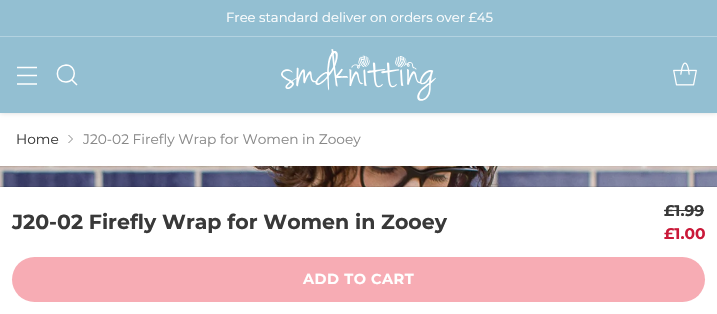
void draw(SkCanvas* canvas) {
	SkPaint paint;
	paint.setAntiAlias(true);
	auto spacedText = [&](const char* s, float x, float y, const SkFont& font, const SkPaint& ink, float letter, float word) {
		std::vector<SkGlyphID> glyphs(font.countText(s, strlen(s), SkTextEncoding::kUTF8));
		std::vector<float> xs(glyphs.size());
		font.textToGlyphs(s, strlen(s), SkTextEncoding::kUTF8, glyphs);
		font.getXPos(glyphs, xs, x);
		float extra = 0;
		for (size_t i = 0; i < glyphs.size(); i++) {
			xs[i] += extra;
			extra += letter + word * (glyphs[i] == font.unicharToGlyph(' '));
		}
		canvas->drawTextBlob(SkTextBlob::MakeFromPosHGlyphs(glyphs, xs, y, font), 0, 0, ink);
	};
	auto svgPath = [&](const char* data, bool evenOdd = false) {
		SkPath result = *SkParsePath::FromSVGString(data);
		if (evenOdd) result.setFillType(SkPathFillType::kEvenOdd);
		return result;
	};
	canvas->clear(0xffffffff);
	paint.setColor(0x26000000);
	paint.setMaskFilter(SkMaskFilter::MakeBlur(kNormal_SkBlurStyle, 2.5));
	canvas->drawRect(SkRect::MakeXYWH(0, 37, 717, 76), paint);
	paint.setMaskFilter(nullptr);
	paint.setColor(0xff93bfd2);
	canvas->drawRect(SkRect::MakeXYWH(0, 0, 717, 36), paint);
	paint.setColor(0xffb3d2e0);
	canvas->drawRect(SkRect::MakeXYWH(0, 36, 717, 1), paint);
	SkFont f1(fontMgr->matchFamilyStyle("Montserrat", SkFontStyle::Normal()), 13.2);
	f1.setSubpixel(true);
	paint.setColor(0xffffffff);
	canvas->drawString("Free standard deliver on orders over £45", 226, 22, f1, paint);
	paint.setColor(0xff93bfd2);
	canvas->drawRect(SkRect::MakeXYWH(0, 37, 717, 76), paint);
	paint.setStroke(true);
	paint.setStrokeWidth(1.4);
	paint.setColor(0xffffffff);
	canvas->drawPath(svgPath("M17 75.5H37M17 67.5H37M17 84H37"), paint);
	paint.setStrokeWidth(1.5);
	paint.setStrokeCap(SkPaint::kRound_Cap);
	canvas->drawPath(svgPath("M66 82C77 82 77 65 66 65C54.5 65.5 54.5 82 66 82Z"), paint);
	paint.setStrokeCap(SkPaint::kButt_Cap);
	canvas->drawPath(svgPath("M72 80L77 85"), paint);
	canvas->drawImageRect(SkImages::DeferredFromEncodedData(SkData::MakeFromFileName("img1.png")), SkRect::MakeXYWH(281, 49, 155, 52), SkSamplingOptions());
	canvas->drawImageRect(SkImages::DeferredFromEncodedData(SkData::MakeFromFileName("img2.png")), SkRect::MakeXYWH(673, 62, 24, 24), SkSamplingOptions());
	SkFont f2(fontMgr->matchFamilyStyle("Montserrat", SkFontStyle::Normal()), 13.75);
	f2.setSubpixel(true);
	paint.setStroke(false);
	paint.setColor(0xff393939);
	canvas->drawString("Home", 16, 144, f2, paint);
	paint.setStroke(true);
	paint.setStrokeWidth(1);
	paint.setColor(0xff888888);
	canvas->drawPath(svgPath("M68.5 143L72.5 139L68.5 135"), paint);
	paint.setStroke(false);
	canvas->drawString("J20-02 Firefly Wrap for Women in Zooey", 83, 144, f2, paint);
	canvas->drawImageRect(SkImages::DeferredFromEncodedData(SkData::MakeFromFileName("img3.png")), SkRect::MakeXYWH(0, 166, 717, 21), SkSamplingOptions());
	paint.setColor(0xff393939);
	canvas->drawRect(SkRect::MakeXYWH(664, 210, 40, 1), paint);
	paint.setStroke(true);
	paint.setColor(0x1a000000);
	canvas->drawRect(SkRect::MakeXYWH(-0.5, 186.5, 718, 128), paint);
	SkFont f3(fontMgr->matchFamilyStyle("Montserrat", SkFontStyle::Bold()), 20.5);
	f3.setSubpixel(true);
	paint.setStroke(false);
	paint.setColor(0xff393939);
	canvas->drawString("J20-02 Firefly Wrap for Women in Zooey", 12, 229, f3, paint);
	SkFont f4(fontMgr->matchFamilyStyle("Montserrat", SkFontStyle::Bold()), 15.5);
	f4.setSubpixel(true);
	canvas->drawString("£1.99", 664, 216, f4, paint);
	paint.setColor(0xffca1939);
	canvas->drawString("£1.00", 664, 239, f4, paint);
	paint.setColor(0xfff7acb4);
	canvas->drawRoundRect(SkRect::MakeXYWH(12, 257, 693, 45), 22.5, 22.5, paint);
	SkFont f5(fontMgr->matchFamilyStyle("Montserrat", SkFontStyle::Bold()), 14.5);
	f5.setSubpixel(true);
	paint.setColor(0xffffffff);
	spacedText("ADD TO CART", 303, 284, f5, paint, 0.5, 0);
}
